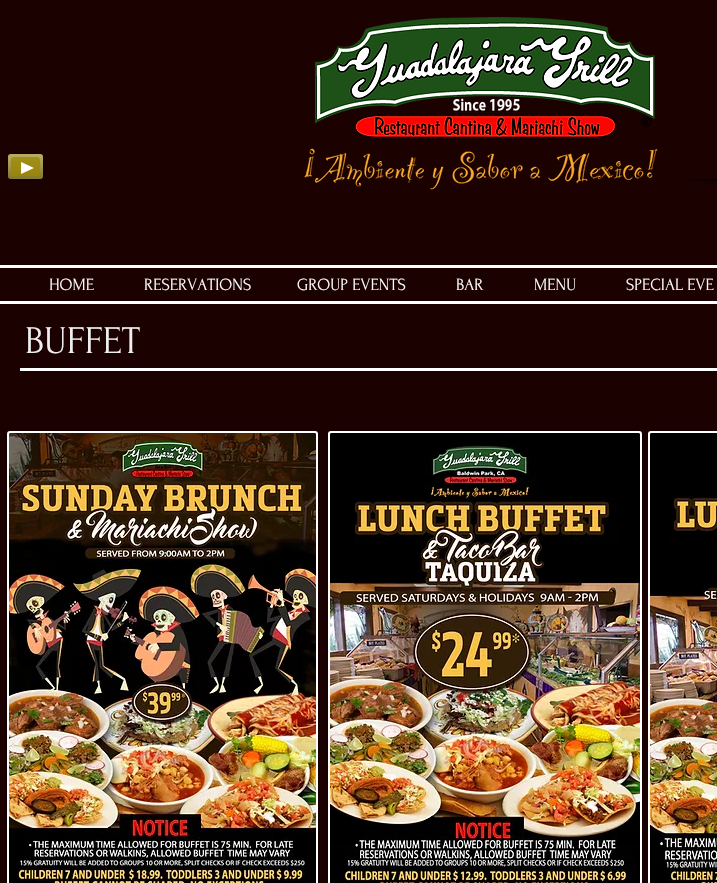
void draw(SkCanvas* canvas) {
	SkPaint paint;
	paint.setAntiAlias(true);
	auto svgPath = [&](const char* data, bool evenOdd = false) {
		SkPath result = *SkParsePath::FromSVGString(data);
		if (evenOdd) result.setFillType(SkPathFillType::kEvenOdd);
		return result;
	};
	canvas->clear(0xff1c0101);
	paint.setColor(0x99000000);
	paint.setMaskFilter(SkMaskFilter::MakeBlur(kNormal_SkBlurStyle, 2));
	canvas->drawRoundRect(SkRect::MakeXYWH(8, 155, 35, 25), 3, 3, paint);
	paint.setMaskFilter(nullptr);
	paint.setColor(0xff9c8700);
	canvas->drawRoundRect(SkRect::MakeXYWH(8, 154, 35, 25), 3, 3, paint);
	canvas->drawImageRect(SkImages::DeferredFromEncodedData(SkData::MakeFromFileName("img1.png")), SkRect::MakeXYWH(8, 154, 35, 25), SkSamplingOptions());
	canvas->drawImageRect(SkImages::DeferredFromEncodedData(SkData::MakeFromFileName("img2.png")), SkRect::MakeXYWH(8, 154, 35, 25), SkSamplingOptions());
	paint.setColor(0xbf9c8700);
	canvas->drawRoundRect(SkRect::MakeXYWH(11, 157, 29, 19), 3, 3, paint);
	paint.setColor(0xffffffff);
	canvas->drawPath(svgPath("M21 174V162L34 168Z"), paint);
	canvas->drawImageRect(SkImages::DeferredFromEncodedData(SkData::MakeFromFileName("img3.png")), SkRect::MakeXYWH(304, 17, 354, 173), SkSamplingOptions());
	canvas->drawImageRect(SkImages::DeferredFromEncodedData(SkData::MakeFromFileName("img4.png")), SkRect::MakeXYWH(682, 179, 35, 4), SkSamplingOptions());
	canvas->drawRect(SkRect::MakeXYWH(0, 265, 717, 3), paint);
	SkFont f1(fontMgr->matchFamilyStyle("Forum", SkFontStyle::Normal()), 17);
	f1.setSubpixel(true);
	canvas->drawString("HOME", 49, 290, f1, paint);
	canvas->drawString("RESERVATIONS", 144, 290, f1, paint);
	canvas->drawString("GROUP EVENTS", 297, 290, f1, paint);
	canvas->drawString("BAR", 456, 290, f1, paint);
	canvas->drawString("MENU", 534, 290, f1, paint);
	canvas->drawString("SPECIAL EVE", 626, 290, f1, paint);
	canvas->drawRect(SkRect::MakeXYWH(0, 301, 717, 3), paint);
	SkFont f2(fontMgr->matchFamilyStyle("Forum", SkFontStyle::Normal()), 39);
	f2.setSubpixel(true);
	paint.setColor(0xffefefef);
	canvas->drawString("BUFFET", 25, 353, f2, paint);
	paint.setColor(0xffffffff);
	canvas->drawRect(SkRect::MakeXYWH(20, 368, 697, 3), paint);
	paint.setColor(0x80000000);
	paint.setMaskFilter(SkMaskFilter::MakeBlur(kNormal_SkBlurStyle, 1.5));
	canvas->drawRoundRect(SkRect::MakeXYWH(7, 431, 311, 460), 3, 3, paint);
	paint.setMaskFilter(nullptr);
	paint.setColor(0xffffffff);
	canvas->drawRoundRect(SkRect::MakeXYWH(8, 432, 309, 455), 2, 2, paint);
	paint.setStroke(true);
	paint.setStrokeWidth(2);
	canvas->drawRoundRect(SkRect::MakeXYWH(8, 432, 309, 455), 2, 2, paint);
	canvas->drawImageRect(SkImages::DeferredFromEncodedData(SkData::MakeFromFileName("img5.png")), SkRect::MakeXYWH(9, 433, 307, 450), SkSamplingOptions());
	paint.setStroke(false);
	paint.setColor(0x80000000);
	paint.setMaskFilter(SkMaskFilter::MakeBlur(kNormal_SkBlurStyle, 1.5));
	canvas->drawRoundRect(SkRect::MakeXYWH(328, 431, 314, 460), 3, 3, paint);
	paint.setMaskFilter(nullptr);
	paint.setColor(0xffffffff);
	canvas->drawRoundRect(SkRect::MakeXYWH(329, 432, 312, 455), 2, 2, paint);
	paint.setStroke(true);
	canvas->drawRoundRect(SkRect::MakeXYWH(329, 432, 312, 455), 2, 2, paint);
	canvas->drawImageRect(SkImages::DeferredFromEncodedData(SkData::MakeFromFileName("img6.png")), SkRect::MakeXYWH(330, 433, 310, 450), SkSamplingOptions());
	paint.setStroke(false);
	paint.setColor(0x80000000);
	paint.setMaskFilter(SkMaskFilter::MakeBlur(kNormal_SkBlurStyle, 1.5));
	canvas->drawRoundRect(SkRect::MakeXYWH(648, 431, 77, 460), 3, 3, paint);
	paint.setMaskFilter(nullptr);
	paint.setColor(0xffffffff);
	canvas->drawRoundRect(SkRect::MakeXYWH(649, 432, 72, 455), 2, 2, paint);
	paint.setStroke(true);
	canvas->drawRoundRect(SkRect::MakeXYWH(649, 432, 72, 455), 2, 2, paint);
	canvas->drawImageRect(SkImages::DeferredFromEncodedData(SkData::MakeFromFileName("img7.png")), SkRect::MakeXYWH(650, 433, 67, 450), SkSamplingOptions());
}
